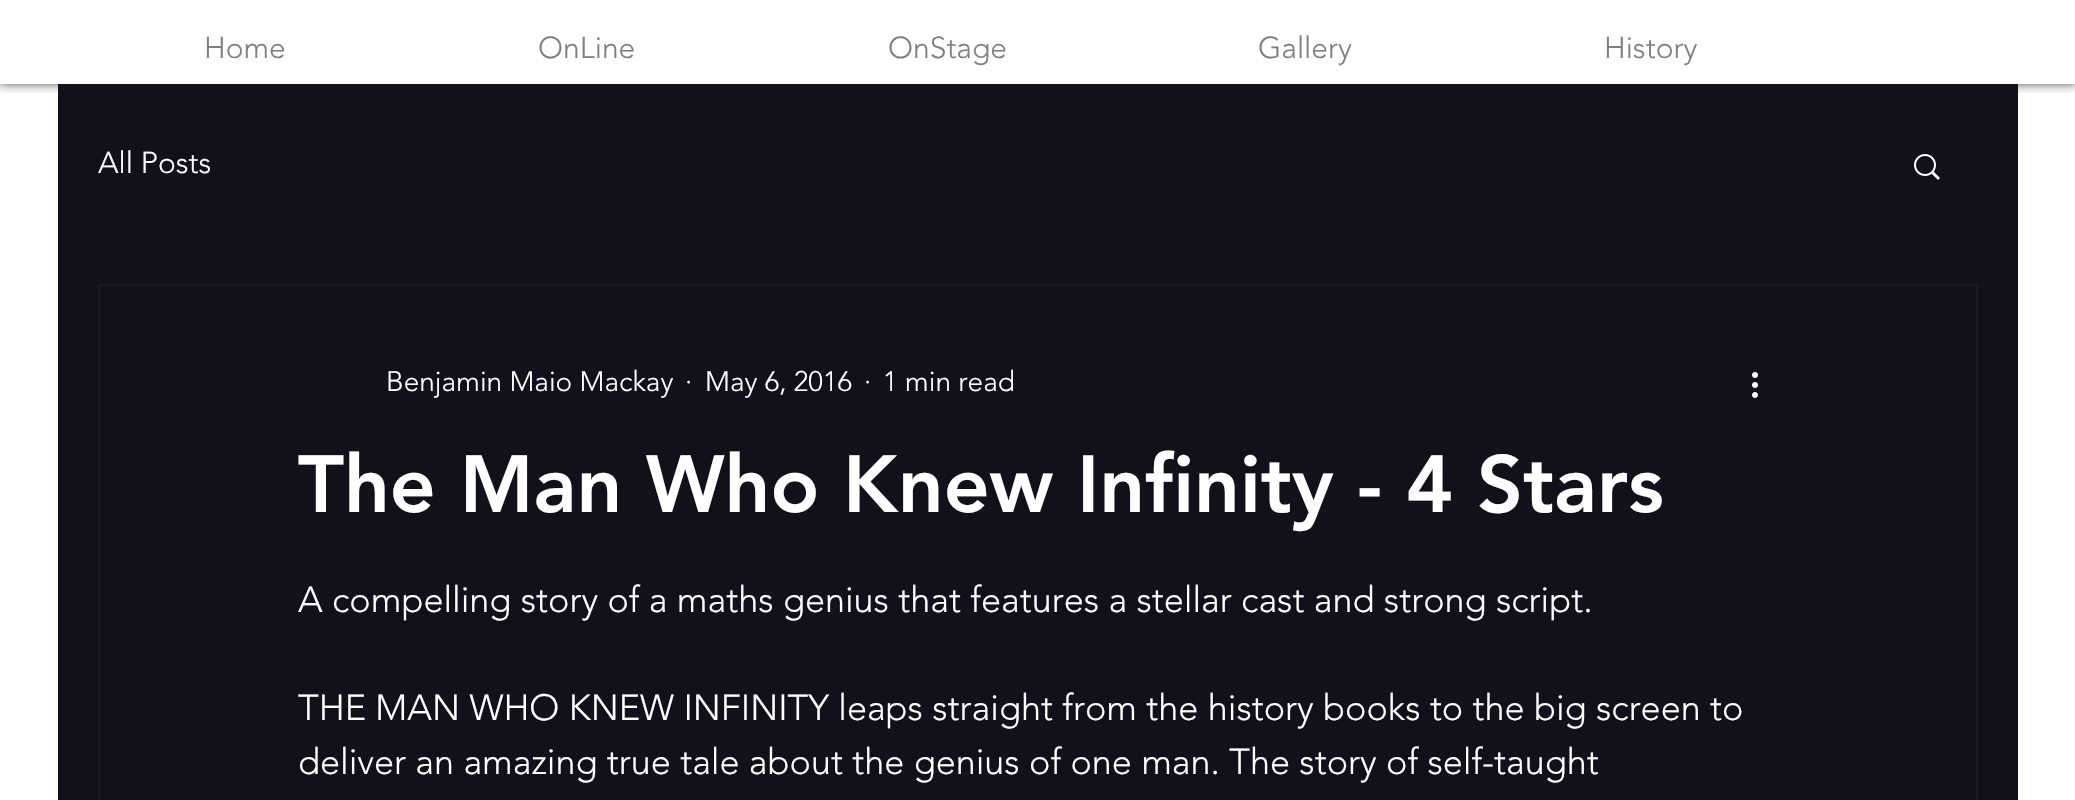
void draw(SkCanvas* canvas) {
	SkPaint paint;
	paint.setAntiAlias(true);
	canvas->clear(0xffffffff);
	canvas->save();
	canvas->clipRect(SkRect::MakeXYWH(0, 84, 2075, 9));
	paint.setColor(0xb3000000);
	paint.setMaskFilter(SkMaskFilter::MakeBlur(kNormal_SkBlurStyle, 5));
	canvas->drawRect(SkRect::MakeXYWH(0, 0, 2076, 84), paint);
	paint.setMaskFilter(nullptr);
	canvas->restore();
	SkFont f1(fontMgr->matchFamilyStyle("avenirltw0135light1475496", SkFontStyle(300, SkFontStyle::kNormal_Width, SkFontStyle::kUpright_Slant)), 30);
	f1.setSubpixel(true);
	paint.setColor(0xff808080);
	canvas->drawString("Home", 204, 58, f1, paint);
	canvas->drawString("OnLine", 538, 58, f1, paint);
	canvas->drawString("OnStage", 888, 58, f1, paint);
	canvas->drawString("Gallery", 1258, 58, f1, paint);
	canvas->drawString("History", 1604, 58, f1, paint);
	paint.setColor(0xff12101b);
	canvas->drawRect(SkRect::MakeXYWH(58, 84, 1960, 716), paint);
	paint.setColor(0xffffffff);
	canvas->drawString("All Posts", 98, 173, f1, paint);
	canvas->drawImageRect(SkImages::DeferredFromEncodedData(SkData::MakeFromFileName("img1.png")), SkRect::MakeXYWH(1914, 154, 26, 26), SkSamplingOptions());
	paint.setStroke(true);
	paint.setStrokeWidth(2);
	paint.setColor(0xff1a1823);
	canvas->drawRect(SkRect::MakeXYWH(99, 285, 1878, 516), paint);
	SkFont f2(fontMgr->matchFamilyStyle("avenirltw0135light1475496", SkFontStyle(300, SkFontStyle::kNormal_Width, SkFontStyle::kUpright_Slant)), 28);
	f2.setSubpixel(true);
	paint.setStroke(false);
	paint.setColor(0xffffffff);
	canvas->drawString("Benjamin Maio Mackay", 386, 391, f2, paint);
	canvas->drawString("·", 685, 391, f2, paint);
	canvas->drawString("May 6, 2016", 705, 391, f2, paint);
	canvas->drawString("·", 864, 391, f2, paint);
	canvas->drawString("1 min read", 883, 391, f2, paint);
	canvas->drawImageRect(SkImages::DeferredFromEncodedData(SkData::MakeFromFileName("img2.png")), SkRect::MakeXYWH(1752, 372, 6, 26), SkSamplingOptions());
	SkFont f3(fontMgr->matchFamilyStyle("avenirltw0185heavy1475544", SkFontStyle(900, SkFontStyle::kNormal_Width, SkFontStyle::kUpright_Slant)), 80);
	f3.setSubpixel(true);
	canvas->drawString("The Man Who Knew Infinity - 4 Stars", 298, 512, f3, paint);
	SkFont f4(fontMgr->matchFamilyStyle("avenirltw0135light1475496", SkFontStyle(300, SkFontStyle::kNormal_Width, SkFontStyle::kUpright_Slant)), 36);
	f4.setSubpixel(true);
	canvas->drawString("A compelling story of a maths genius that features a stellar cast and strong script.", 298, 612, f4, paint);
	canvas->drawString("THE MAN WHO KNEW INFINITY leaps straight from the history books to the big screen to", 298, 720, f4, paint);
	canvas->drawString("deliver an amazing true tale about the genius of one man. The story of self-taught", 298, 774, f4, paint);
}
